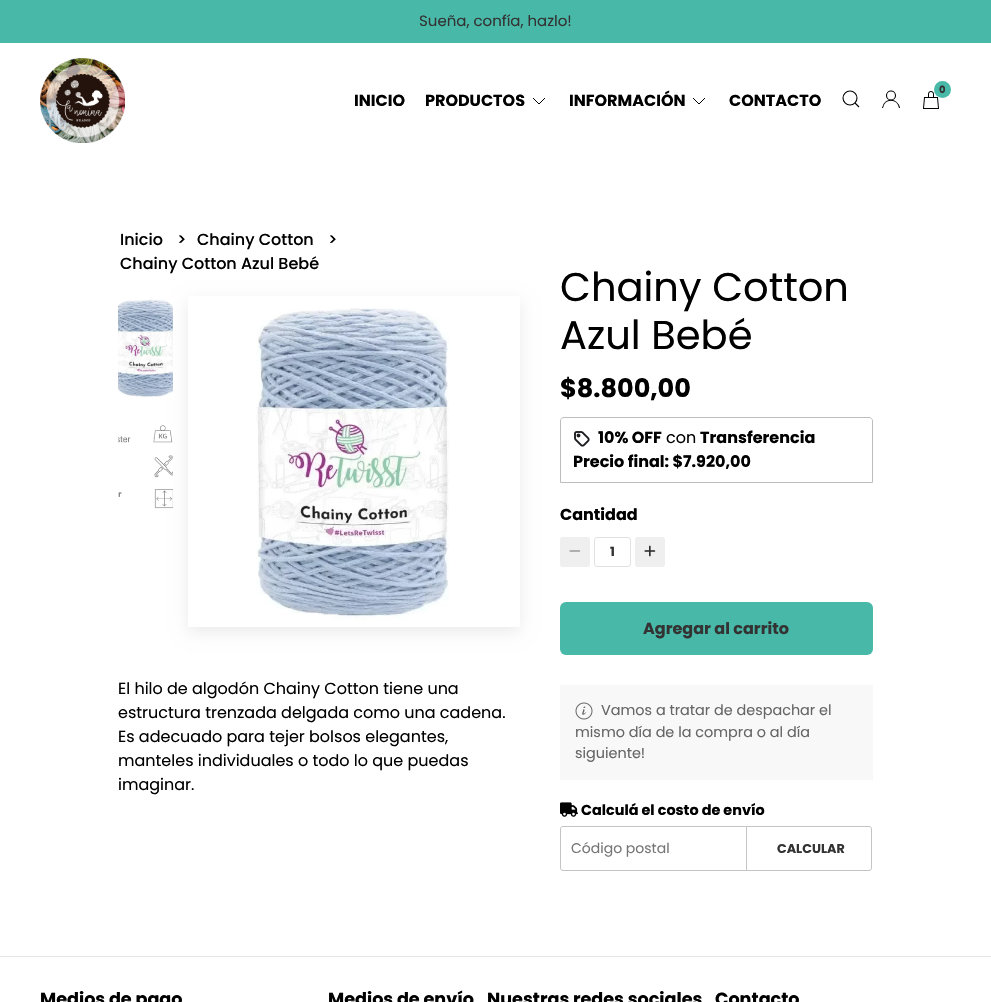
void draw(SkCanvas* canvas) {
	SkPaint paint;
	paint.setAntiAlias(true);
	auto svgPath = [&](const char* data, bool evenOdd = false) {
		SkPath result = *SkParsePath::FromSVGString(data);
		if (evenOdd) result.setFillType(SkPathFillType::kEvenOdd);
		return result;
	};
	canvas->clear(0xffffffff);
	paint.setColor(0xff48b9a8);
	canvas->drawRect(SkRect::MakeXYWH(0, 0, 991, 43), paint);
	SkFont f1(fontMgr->matchFamilyStyle("Poppins", SkFontStyle::Normal()), 15);
	f1.setSubpixel(true);
	paint.setColor(0xff333333);
	canvas->drawString("Sueña, confía, hazlo!", 419, 26, f1, paint);
	canvas->drawImageRect(SkImages::DeferredFromEncodedData(SkData::MakeFromFileName("img1.png")), SkRect::MakeXYWH(40, 58, 85, 85), SkSamplingOptions());
	canvas->drawImageRect(SkImages::DeferredFromEncodedData(SkData::MakeFromFileName("img2.png")), SkRect::MakeXYWH(923, 91, 16, 18), SkSamplingOptions());
	paint.setColor(0xff48b9a8);
	canvas->drawCircle(942.5, 89.5, 8.5, paint);
	SkFont f2(fontMgr->matchFamilyStyle("Poppins", SkFontStyle::Bold()), 10);
	f2.setSubpixel(true);
	paint.setColor(0xff333333);
	canvas->drawString("0", 939, 93, f2, paint);
	SkFont f3(fontMgr->matchFamilyStyle("Poppins", SkFontStyle::Bold()), 16);
	f3.setSubpixel(true);
	paint.setColor(0xff000000);
	canvas->drawString("INICIO", 354, 106, f3, paint);
	canvas->drawString("PRODUCTOS", 425, 106, f3, paint);
	paint.setStroke(true);
	paint.setStrokeWidth(1);
	canvas->drawPath(svgPath("M545 98L539 104L533 98"), paint);
	paint.setStroke(false);
	canvas->drawString("INFORMACIÓN", 569, 106, f3, paint);
	paint.setStroke(true);
	canvas->drawPath(svgPath("M705 98L699 104L693 98"), paint);
	paint.setStroke(false);
	canvas->drawString("CONTACTO", 729, 106, f3, paint);
	paint.setStroke(true);
	paint.setStrokeWidth(1.1);
	canvas->drawCircle(850, 98, 7, paint);
	canvas->drawPath(svgPath("M855 103L859 107Z"), paint);
	canvas->drawCircle(891, 95.5, 4.5, paint);
	canvas->drawPath(svgPath("M882.5 108C884.5 97.5 897.5 98 899.5 108"), paint);
	SkFont f4(fontMgr->matchFamilyStyle("Poppins", SkFontStyle(500, SkFontStyle::kNormal_Width, SkFontStyle::kUpright_Slant)), 16);
	f4.setSubpixel(true);
	paint.setStroke(false);
	canvas->drawString("Inicio", 120, 245, f4, paint);
	canvas->drawString(">", 177, 245, f4, paint);
	canvas->drawString("Chainy Cotton", 197, 245, f4, paint);
	canvas->drawString(">", 328, 245, f4, paint);
	canvas->drawString("Chainy Cotton Azul Bebé", 120, 269, f4, paint);
	canvas->save();
	canvas->clipPath(svgPath("M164 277H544V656H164ZM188 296H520V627H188Z", true), true);
	paint.setColor(0x14000000);
	paint.setMaskFilter(SkMaskFilter::MakeBlur(kNormal_SkBlurStyle, 7.5));
	canvas->drawRect(SkRect::MakeXYWH(188, 301, 332, 331), paint);
	paint.setMaskFilter(nullptr);
	canvas->restore();
	canvas->drawImageRect(SkImages::DeferredFromEncodedData(SkData::MakeFromFileName("img3.png")), SkRect::MakeXYWH(118, 299, 55, 99), SkSamplingOptions());
	canvas->drawImageRect(SkImages::DeferredFromEncodedData(SkData::MakeFromFileName("img4.png")), SkRect::MakeXYWH(118, 425, 55, 84), SkSamplingOptions());
	canvas->drawImageRect(SkImages::DeferredFromEncodedData(SkData::MakeFromFileName("img5.png")), SkRect::MakeXYWH(256, 308, 193, 312), SkSamplingOptions());
	SkFont f5(fontMgr->matchFamilyStyle("Poppins", SkFontStyle::Normal()), 16);
	f5.setSubpixel(true);
	paint.setColor(0xff000000);
	canvas->drawString("El hilo de algodón Chainy Cotton tiene una", 118, 694, f5, paint);
	canvas->drawString("estructura trenzada delgada como una cadena.", 118, 718, f5, paint);
	canvas->drawString("Es adecuado para tejer bolsos elegantes,", 118, 742, f5, paint);
	canvas->drawString("manteles individuales o todo lo que puedas", 118, 766, f5, paint);
	canvas->drawString("imaginar.", 118, 790, f5, paint);
	SkFont f6(fontMgr->matchFamilyStyle("Poppins", SkFontStyle::Normal()), 40);
	f6.setSubpixel(true);
	canvas->drawString("Chainy Cotton", 560, 301, f6, paint);
	canvas->drawString("Azul Bebé", 560, 349, f6, paint);
	SkFont f7(fontMgr->matchFamilyStyle("Poppins", SkFontStyle::Bold()), 25.5);
	f7.setSubpixel(true);
	canvas->drawString("$8.800,00", 560, 397, f7, paint);
	paint.setStroke(true);
	paint.setStrokeWidth(1);
	paint.setColor(0xffbdbdbd);
	canvas->drawPath(svgPath("M564 417.5H869C871 417.5 872.5 419 872.5 421V482.5H560.5V421C560.5 419 562 417.5 564 417.5Z"), paint);
	canvas->drawImageRect(SkImages::DeferredFromEncodedData(SkData::MakeFromFileName("img6.png")), SkRect::MakeXYWH(574, 431, 16, 16), SkSamplingOptions());
	paint.setStroke(false);
	paint.setColor(0xff000000);
	canvas->drawString("10% OFF", 598, 443, f3, paint);
	canvas->drawString("con", 666, 443, f5, paint);
	canvas->drawString("Transferencia", 700, 443, f3, paint);
	canvas->drawString("Precio final: $7.920,00", 573, 467, f3, paint);
	canvas->drawString("Cantidad", 560, 520, f3, paint);
	paint.setColor(0xffefefef);
	canvas->drawRoundRect(SkRect::MakeXYWH(560, 537, 30, 30), 3, 3, paint);
	canvas->drawImageRect(SkImages::DeferredFromEncodedData(SkData::MakeFromFileName("img7.png")), SkRect::MakeXYWH(569, 550, 12, 2), SkSamplingOptions());
	paint.setStroke(true);
	paint.setColor(0xffe1e1e1);
	canvas->drawRoundRect(SkRect::MakeXYWH(594.5, 537.5, 36, 29), 2.5, 2.5, paint);
	SkFont f8(fontMgr->matchFamilyStyle("Poppins", SkFontStyle::Bold()), 12.75);
	f8.setSubpixel(true);
	paint.setStroke(false);
	paint.setColor(0xff333333);
	canvas->drawString("1", 610, 556, f8, paint);
	paint.setColor(0xffefefef);
	canvas->drawRoundRect(SkRect::MakeXYWH(635, 537, 30, 30), 3, 3, paint);
	canvas->drawImageRect(SkImages::DeferredFromEncodedData(SkData::MakeFromFileName("img8.png")), SkRect::MakeXYWH(644, 545, 12, 12), SkSamplingOptions());
	paint.setColor(0xff48b9a8);
	canvas->drawRoundRect(SkRect::MakeXYWH(560, 602, 313, 53), 6, 6, paint);
	paint.setColor(0xff333333);
	canvas->drawString("Agregar al carrito", 643, 634, f3, paint);
	paint.setColor(0xfff8f8f8);
	canvas->drawRect(SkRect::MakeXYWH(560, 685, 313, 95), paint);
	canvas->drawImageRect(SkImages::DeferredFromEncodedData(SkData::MakeFromFileName("img9.png")), SkRect::MakeXYWH(575, 702, 18, 18), SkSamplingOptions());
	SkFont f9(fontMgr->matchFamilyStyle("Poppins", SkFontStyle::Normal()), 14.4);
	f9.setSubpixel(true);
	paint.setColor(0xff666666);
	canvas->drawString("Vamos a tratar de despachar el", 601, 715, f9, paint);
	canvas->drawString("mismo día de la compra o al día", 575, 737, f9, paint);
	canvas->drawString("siguiente!", 575, 758, f9, paint);
	canvas->drawImageRect(SkImages::DeferredFromEncodedData(SkData::MakeFromFileName("img10.png")), SkRect::MakeXYWH(560, 802, 18, 15), SkSamplingOptions());
	SkFont f10(fontMgr->matchFamilyStyle("Poppins", SkFontStyle::Bold()), 14.4);
	f10.setSubpixel(true);
	paint.setColor(0xff000000);
	canvas->drawString("Calculá el costo de envío", 581, 815, f10, paint);
	paint.setStroke(true);
	paint.setColor(0xffc4c4c4);
	canvas->drawPath(svgPath("M563 826.5H746.5V870.5H563C561.5 870.5 560.5 869.5 560.5 868V829C560.5 827.5 561.5 826.5 563 826.5Z"), paint);
	SkFont f11(fontMgr->matchFamilyStyle("Poppins", SkFontStyle::Normal()), 14);
	f11.setSubpixel(true);
	paint.setStroke(false);
	paint.setColor(0xff757575);
	canvas->drawString("Código postal", 571, 853, f11, paint);
	paint.setColor(0xffffffff);
	canvas->drawPath(svgPath("M746.5 826.5H869C870.5 826.5 871.5 827.5 871.5 829V868C871.5 869.5 870.5 870.5 869 870.5H746.5Z"), paint);
	paint.setStroke(true);
	paint.setColor(0xffc4c4c4);
	canvas->drawPath(svgPath("M746.5 826.5H869C870.5 826.5 871.5 827.5 871.5 829V868C871.5 869.5 870.5 870.5 869 870.5H746.5Z"), paint);
	paint.setStroke(false);
	paint.setColor(0xff333333);
	canvas->drawString("CALCULAR", 777, 853, f8, paint);
	paint.setColor(0xffe6e6e6);
	canvas->drawRect(SkRect::MakeXYWH(0, 956, 991, 1), paint);
	SkFont f12(fontMgr->matchFamilyStyle("Poppins", SkFontStyle::Bold()), 17.6);
	f12.setSubpixel(true);
	paint.setColor(0xff000000);
	canvas->drawString("Medios de pago", 40, 1005, f12, paint);
	canvas->drawString("Medios de envío", 328, 1005, f12, paint);
	canvas->drawString("Nuestras redes sociales", 487, 1005, f12, paint);
	canvas->drawString("Contacto", 715, 1005, f12, paint);
}
